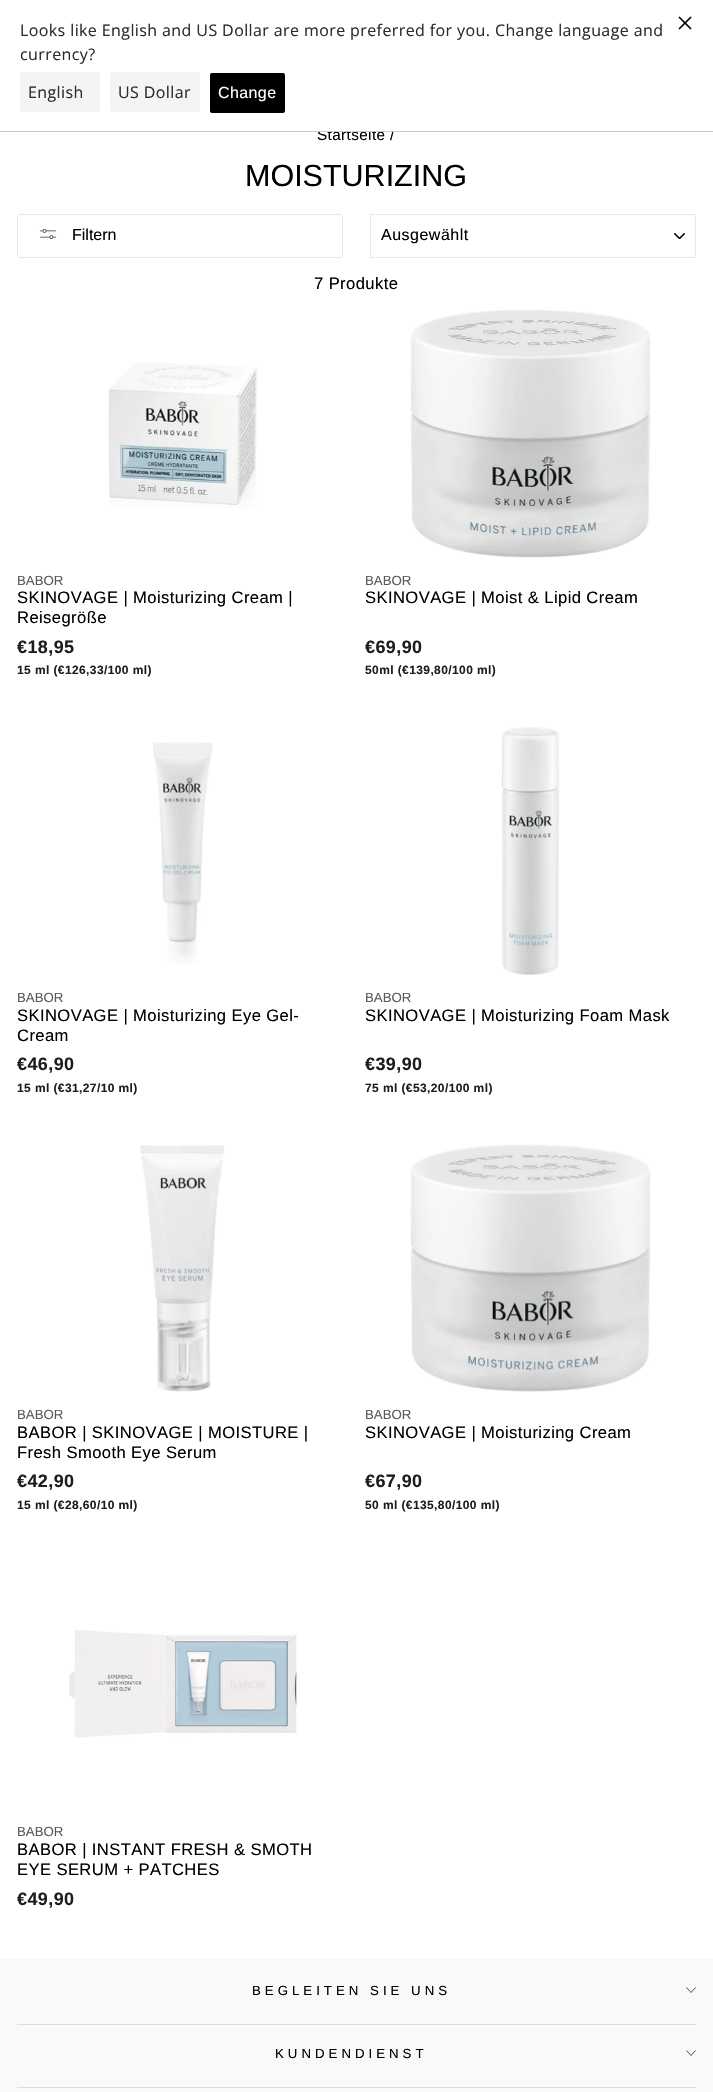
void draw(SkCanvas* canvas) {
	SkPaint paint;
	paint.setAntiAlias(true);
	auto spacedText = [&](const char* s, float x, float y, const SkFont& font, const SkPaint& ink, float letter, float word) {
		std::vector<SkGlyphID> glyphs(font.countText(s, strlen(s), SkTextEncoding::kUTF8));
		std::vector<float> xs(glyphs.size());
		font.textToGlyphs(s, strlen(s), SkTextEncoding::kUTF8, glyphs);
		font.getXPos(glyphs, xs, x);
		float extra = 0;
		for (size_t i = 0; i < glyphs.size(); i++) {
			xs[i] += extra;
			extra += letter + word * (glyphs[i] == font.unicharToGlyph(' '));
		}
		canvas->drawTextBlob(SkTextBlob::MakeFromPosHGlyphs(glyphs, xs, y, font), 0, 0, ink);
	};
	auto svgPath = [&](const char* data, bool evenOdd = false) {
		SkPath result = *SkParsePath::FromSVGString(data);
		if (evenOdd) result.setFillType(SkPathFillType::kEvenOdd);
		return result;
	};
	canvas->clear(0xffffffff);
	SkFont f1(fontMgr->matchFamilyStyle("Liberation Sans", SkFontStyle::Normal()), 15.25);
	f1.setSubpixel(true);
	paint.setColor(0xff000000);
	spacedText("Startseite /", 317, 140, f1, paint, 0.4, 0);
	paint.setColor(0xffffffff);
	canvas->drawRect(SkRect::MakeXYWH(318, 128, 78, 3), paint);
	paint.setColor(0xffcccccc);
	canvas->drawRect(SkRect::MakeXYWH(0, 131, 713, 1), paint);
	SkFont f2(fontMgr->matchFamilyStyle("Open Sans", SkFontStyle::Normal()), 16);
	f2.setSubpixel(true);
	paint.setColor(0xff272e31);
	spacedText("Looks like English and US Dollar are more preferred for you. Change language and", 20, 36, f2, paint, 0.4, 0);
	spacedText("currency?", 20, 60, f2, paint, 0.4, 0);
	paint.setColor(0xfff4f4f4);
	canvas->drawRoundRect(SkRect::MakeXYWH(20, 72, 80, 40), 2, 2, paint);
	paint.setColor(0xff272e31);
	spacedText("English", 28, 98, f2, paint, 0.4, 0);
	paint.setColor(0xfff4f4f4);
	canvas->drawRoundRect(SkRect::MakeXYWH(110, 72, 90, 40), 2, 2, paint);
	paint.setColor(0xff272e31);
	spacedText("US Dollar", 118, 98, f2, paint, 0.4, 0);
	paint.setColor(0xff000000);
	canvas->drawRoundRect(SkRect::MakeXYWH(210, 73, 75, 40), 2, 2, paint);
	SkFont f3(fontMgr->matchFamilyStyle("Liberation Sans", SkFontStyle::Normal()), 16);
	f3.setSubpixel(true);
	paint.setColor(0xffffffff);
	spacedText("Change", 218, 98, f3, paint, 0.4, 0);
	canvas->drawImageRect(SkImages::DeferredFromEncodedData(SkData::MakeFromFileName("img1.png")), SkRect::MakeXYWH(678, 16, 14, 14), SkSamplingOptions());
	SkFont f4(fontMgr->matchFamilyStyle("Liberation Sans", SkFontStyle::Normal()), 30.5);
	f4.setSubpixel(true);
	paint.setColor(0xff000000);
	canvas->drawString("MOISTURIZING", 245, 186, f4, paint);
	paint.setStroke(true);
	paint.setStrokeWidth(1);
	paint.setColor(0xffe8e8e1);
	canvas->drawRoundRect(SkRect::MakeXYWH(17.5, 214.5, 325, 43), 2.5, 2.5, paint);
	canvas->drawImageRect(SkImages::DeferredFromEncodedData(SkData::MakeFromFileName("img2.png")), SkRect::MakeXYWH(39, 229, 18, 10), SkSamplingOptions());
	paint.setStroke(false);
	paint.setColor(0xff000000);
	canvas->drawString("Filtern", 72, 240, f3, paint);
	canvas->drawImageRect(SkImages::DeferredFromEncodedData(SkData::MakeFromFileName("img3.png")), SkRect::MakeXYWH(674, 233, 11, 6), SkSamplingOptions());
	paint.setStroke(true);
	paint.setColor(0xffe8e8e1);
	canvas->drawRect(SkRect::MakeXYWH(370.5, 214.5, 325, 43), paint);
	paint.setStroke(false);
	paint.setColor(0xff000000);
	spacedText("Ausgewählt", 381, 240, f3, paint, 0.5, 0);
	SkFont f5(fontMgr->matchFamilyStyle("Liberation Sans", SkFontStyle::Normal()), 16.6);
	f5.setSubpixel(true);
	spacedText("7 Produkte", 314, 289, f5, paint, 0.4, 0);
	canvas->drawImageRect(SkImages::DeferredFromEncodedData(SkData::MakeFromFileName("img4.png")), SkRect::MakeXYWH(108, 362, 150, 146), SkSamplingOptions());
	SkFont f6(fontMgr->matchFamilyStyle("Liberation Sans", SkFontStyle::Normal()), 13.25);
	f6.setSubpixel(true);
	paint.setColor(0xff595959);
	canvas->drawString("BABOR", 17, 585, f6, paint);
	paint.setColor(0xff000000);
	spacedText("SKINOVAGE | Moisturizing Cream |", 17, 603, f5, paint, 0.4, 0);
	spacedText("Reisegröße", 17, 623, f5, paint, 0.4, 0);
	SkFont f7(fontMgr->matchFamilyStyle("Liberation Sans", SkFontStyle::Bold()), 18);
	f7.setSubpixel(true);
	paint.setColor(0xff1c1d1d);
	spacedText("€18,95", 17, 653, f7, paint, 0.4, 0);
	SkFont f8(fontMgr->matchFamilyStyle("Liberation Sans", SkFontStyle::Bold()), 12);
	f8.setSubpixel(true);
	spacedText("15 ml (€126,33/100 ml)", 17, 674, f8, paint, 0.4, 0);
	canvas->drawImageRect(SkImages::DeferredFromEncodedData(SkData::MakeFromFileName("img5.png")), SkRect::MakeXYWH(410, 309, 241, 249), SkSamplingOptions());
	paint.setColor(0xff595959);
	canvas->drawString("BABOR", 365, 585, f6, paint);
	paint.setColor(0xff000000);
	spacedText("SKINOVAGE | Moist & Lipid Cream", 365, 603, f5, paint, 0.4, 0);
	paint.setColor(0xff1c1d1d);
	spacedText("€69,90", 365, 653, f7, paint, 0.4, 0);
	spacedText("50ml (€139,80/100 ml)", 365, 674, f8, paint, 0.4, 0);
	canvas->drawImageRect(SkImages::DeferredFromEncodedData(SkData::MakeFromFileName("img6.png")), SkRect::MakeXYWH(153, 742, 60, 223), SkSamplingOptions());
	paint.setColor(0xff595959);
	canvas->drawString("BABOR", 17, 1002, f6, paint);
	paint.setColor(0xff000000);
	spacedText("SKINOVAGE | Moisturizing Eye Gel-", 17, 1021, f5, paint, 0.4, 0);
	spacedText("Cream", 17, 1041, f5, paint, 0.4, 0);
	paint.setColor(0xff1c1d1d);
	spacedText("€46,90", 17, 1070, f7, paint, 0.4, 0);
	spacedText("15 ml (€31,27/10 ml)", 17, 1092, f8, paint, 0.4, 0);
	canvas->drawImageRect(SkImages::DeferredFromEncodedData(SkData::MakeFromFileName("img7.png")), SkRect::MakeXYWH(501, 727, 59, 248), SkSamplingOptions());
	paint.setColor(0xff595959);
	canvas->drawString("BABOR", 365, 1002, f6, paint);
	paint.setColor(0xff000000);
	spacedText("SKINOVAGE | Moisturizing Foam Mask", 365, 1021, f5, paint, 0.4, 0);
	paint.setColor(0xff1c1d1d);
	spacedText("€39,90", 365, 1070, f7, paint, 0.4, 0);
	spacedText("75 ml (€53,20/100 ml)", 365, 1092, f8, paint, 0.4, 0);
	canvas->drawImageRect(SkImages::DeferredFromEncodedData(SkData::MakeFromFileName("img8.png")), SkRect::MakeXYWH(140, 1145, 85, 247), SkSamplingOptions());
	paint.setColor(0xff595959);
	canvas->drawString("BABOR", 17, 1419, f6, paint);
	paint.setColor(0xff000000);
	spacedText("BABOR | SKINOVAGE | MOISTURE |", 17, 1438, f5, paint, 0.4, 0);
	spacedText("Fresh Smooth Eye Serum", 17, 1458, f5, paint, 0.4, 0);
	paint.setColor(0xff1c1d1d);
	spacedText("€42,90", 17, 1487, f7, paint, 0.4, 0);
	spacedText("15 ml (€28,60/10 ml)", 17, 1509, f8, paint, 0.4, 0);
	canvas->drawImageRect(SkImages::DeferredFromEncodedData(SkData::MakeFromFileName("img9.png")), SkRect::MakeXYWH(410, 1144, 241, 248), SkSamplingOptions());
	paint.setColor(0xff595959);
	canvas->drawString("BABOR", 365, 1419, f6, paint);
	paint.setColor(0xff000000);
	spacedText("SKINOVAGE | Moisturizing Cream", 365, 1438, f5, paint, 0.4, 0);
	paint.setColor(0xff1c1d1d);
	spacedText("€67,90", 365, 1487, f7, paint, 0.4, 0);
	spacedText("50 ml (€135,80/100 ml)", 365, 1509, f8, paint, 0.4, 0);
	canvas->drawImageRect(SkImages::DeferredFromEncodedData(SkData::MakeFromFileName("img10.png")), SkRect::MakeXYWH(69, 1630, 229, 108), SkSamplingOptions());
	paint.setColor(0xff595959);
	canvas->drawString("BABOR", 17, 1836, f6, paint);
	paint.setColor(0xff000000);
	spacedText("BABOR | INSTANT FRESH & SMOTH", 17, 1855, f5, paint, 0.4, 0);
	spacedText("EYE SERUM + PATCHES", 17, 1875, f5, paint, 0.4, 0);
	paint.setColor(0xff1c1d1d);
	spacedText("€49,90", 17, 1905, f7, paint, 0.4, 0);
	paint.setColor(0xfff9f9f9);
	canvas->drawRect(SkRect::MakeXYWH(0, 1959, 713, 133), paint);
	paint.setColor(0xff000000);
	spacedText("BEGLEITEN SIE UNS", 252, 1995, f6, paint, 4, 0);
	paint.setStroke(true);
	paint.setStrokeWidth(0.7);
	canvas->drawPath(svgPath("M686.5 1987.5L691 1992.5L695.5 1987.5"), paint);
	paint.setStroke(false);
	paint.setColor(0xffdbdbdb);
	canvas->drawRect(SkRect::MakeXYWH(17, 2024, 679, 1), paint);
	paint.setColor(0xff000000);
	spacedText("KUNDENDIENST", 275, 2058, f6, paint, 4, 0);
	paint.setStroke(true);
	canvas->drawPath(svgPath("M686.5 2050.5L691 2055.5L695.5 2050.5"), paint);
	paint.setStroke(false);
	paint.setColor(0xffdbdbdb);
	canvas->drawRect(SkRect::MakeXYWH(17, 2087, 679, 1), paint);
}
